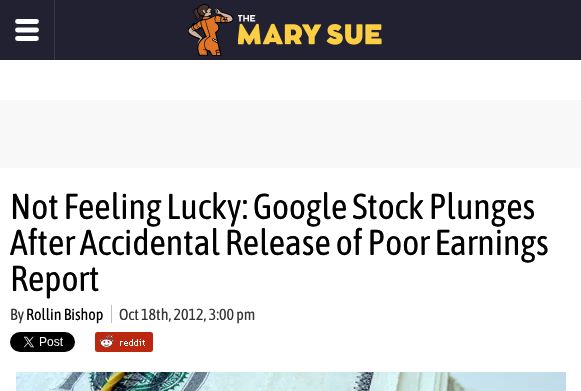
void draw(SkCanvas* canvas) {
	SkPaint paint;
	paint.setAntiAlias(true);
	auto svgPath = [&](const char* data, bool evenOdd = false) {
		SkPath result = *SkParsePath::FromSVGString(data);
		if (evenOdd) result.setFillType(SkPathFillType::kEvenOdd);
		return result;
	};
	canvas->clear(0xffffffff);
	paint.setColor(0xff212131);
	canvas->drawRect(SkRect::MakeXYWH(0, 0, 581, 60), paint);
	paint.setColor(0xff373746);
	canvas->drawRect(SkRect::MakeXYWH(54, 0, 1, 60), paint);
	paint.setStroke(true);
	paint.setStrokeWidth(4.8);
	paint.setStrokeCap(SkPaint::kRound_Cap);
	paint.setColor(0xffffffff);
	canvas->drawPath(svgPath("M17.5 21.5H36.5M17.5 30H36.5M17.5 38.5H36.5"), paint);
	canvas->drawImageRect(SkImages::DeferredFromEncodedData(SkData::MakeFromFileName("img1.png")), SkRect::MakeXYWH(188, 4, 46, 52), SkSamplingOptions());
	canvas->drawImageRect(SkImages::DeferredFromEncodedData(SkData::MakeFromFileName("img2.png")), SkRect::MakeXYWH(238, 15, 144, 30), SkSamplingOptions());
	paint.setStroke(false);
	paint.setColor(0xfff8f8f9);
	canvas->drawRect(SkRect::MakeXYWH(0, 100, 581, 68), paint);
	SkFont f1(fontMgr->matchFamilyStyle("Asap Condensed", SkFontStyle::Normal()), 36);
	f1.setSubpixel(true);
	paint.setColor(0xff000000);
	canvas->drawString("Not Feeling Lucky: Google Stock Plunges", 10, 219, f1, paint);
	canvas->drawString("After Accidental Release of Poor Earnings", 10, 255, f1, paint);
	canvas->drawString("Report", 10, 291, f1, paint);
	SkFont f2(fontMgr->matchFamilyStyle("Asap Condensed", SkFontStyle::Normal()), 16);
	f2.setSubpixel(true);
	paint.setColor(0xff333333);
	canvas->drawString("By", 10, 320, f2, paint);
	paint.setColor(0xff000000);
	canvas->drawString("Rollin Bishop", 26, 320, f2, paint);
	paint.setColor(0xff333333);
	canvas->drawString("Oct 18th, 2012, 3:00 pm", 119, 320, f2, paint);
	paint.setColor(0xffbfbfbf);
	canvas->drawRect(SkRect::MakeXYWH(111, 305, 1, 18), paint);
	canvas->drawImageRect(SkImages::DeferredFromEncodedData(SkData::MakeFromFileName("img3.png")), SkRect::MakeXYWH(10, 332, 65, 20), SkSamplingOptions());
	canvas->drawImageRect(SkImages::DeferredFromEncodedData(SkData::MakeFromFileName("img4.png")), SkRect::MakeXYWH(95, 332, 58, 20), SkSamplingOptions());
	canvas->drawImageRect(SkImages::DeferredFromEncodedData(SkData::MakeFromFileName("img5.png")), SkRect::MakeXYWH(16, 372, 550, 19), SkSamplingOptions());
}
